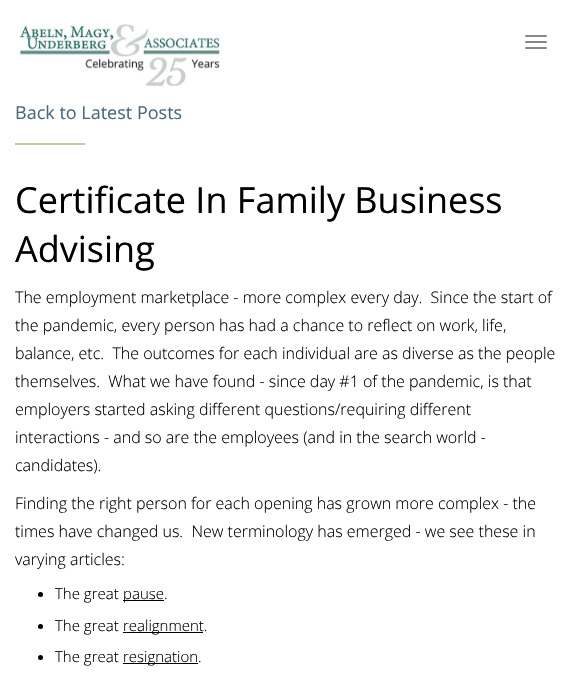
void draw(SkCanvas* canvas) {
	SkPaint paint;
	paint.setAntiAlias(true);
	canvas->clear(0xffffffff);
	canvas->drawImageRect(SkImages::DeferredFromEncodedData(SkData::MakeFromFileName("img1.png")), SkRect::MakeXYWH(20, 24, 200, 62), SkSamplingOptions());
	paint.setColor(0xff888888);
	canvas->drawRoundRect(SkRect::MakeXYWH(525, 35, 22, 2), 1, 1, paint);
	canvas->drawRoundRect(SkRect::MakeXYWH(525, 41, 22, 2), 1, 1, paint);
	canvas->drawRoundRect(SkRect::MakeXYWH(525, 47, 22, 2), 1, 1, paint);
	SkFont f1(fontMgr->matchFamilyStyle("Open Sans", SkFontStyle::Normal()), 18);
	f1.setSubpixel(true);
	paint.setColor(0xff4b677c);
	canvas->drawString("Back to Latest Posts", 15, 119, f1, paint);
	paint.setColor(0xffd1c2a5);
	canvas->drawRect(SkRect::MakeXYWH(15, 143, 70, 2), paint);
	SkFont f2(fontMgr->matchFamilyStyle("Open Sans", SkFontStyle::Normal()), 36);
	f2.setSubpixel(true);
	paint.setColor(0xff000000);
	canvas->drawString("Certificate In Family Business", 15, 213, f2, paint);
	canvas->drawString("Advising", 15, 262, f2, paint);
	SkFont f3(fontMgr->matchFamilyStyle("Open Sans", SkFontStyle(300, SkFontStyle::kNormal_Width, SkFontStyle::kUpright_Slant)), 16);
	f3.setSubpixel(true);
	canvas->drawString("The employment marketplace - more complex every day.  Since the start of", 15, 303, f3, paint);
	canvas->drawString("the pandemic, every person has had a chance to reflect on work, life,", 15, 331, f3, paint);
	canvas->drawString("balance, etc.  The outcomes for each individual are as diverse as the people", 15, 359, f3, paint);
	canvas->drawString("themselves.  What we have found - since day #1 of the pandemic, is that", 15, 387, f3, paint);
	canvas->drawString("employers started asking different questions/requiring different", 15, 415, f3, paint);
	canvas->drawString("interactions - and so are the employees (and in the search world -", 15, 443, f3, paint);
	canvas->drawString("candidates).", 15, 471, f3, paint);
	canvas->drawString("Finding the right person for each opening has grown more complex - the", 15, 509, f3, paint);
	canvas->drawString("times have changed us.  New terminology has emerged - we see these in", 15, 537, f3, paint);
	canvas->drawString("varying articles:", 15, 565, f3, paint);
	canvas->drawCircle(40.5, 594.5, 2.5, paint);
	SkFont f4(fontMgr->matchFamilyStyle("Open Sans", SkFontStyle(300, SkFontStyle::kNormal_Width, SkFontStyle::kUpright_Slant)), 15);
	f4.setSubpixel(true);
	canvas->drawString("The great", 55, 599, f4, paint);
	canvas->drawRect(SkRect::MakeXYWH(123, 600, 41, 1), paint);
	canvas->drawString("pause.", 123, 599, f4, paint);
	canvas->drawCircle(40.5, 626.5, 2.5, paint);
	canvas->drawString("The great", 55, 631, f4, paint);
	canvas->drawRect(SkRect::MakeXYWH(123, 632, 80, 1), paint);
	canvas->drawString("realignment.", 123, 631, f4, paint);
	canvas->drawCircle(40.5, 657.5, 2.5, paint);
	canvas->drawString("The great", 55, 662, f4, paint);
	canvas->drawRect(SkRect::MakeXYWH(123, 663, 75, 1), paint);
	canvas->drawString("resignation.", 123, 662, f4, paint);
}
